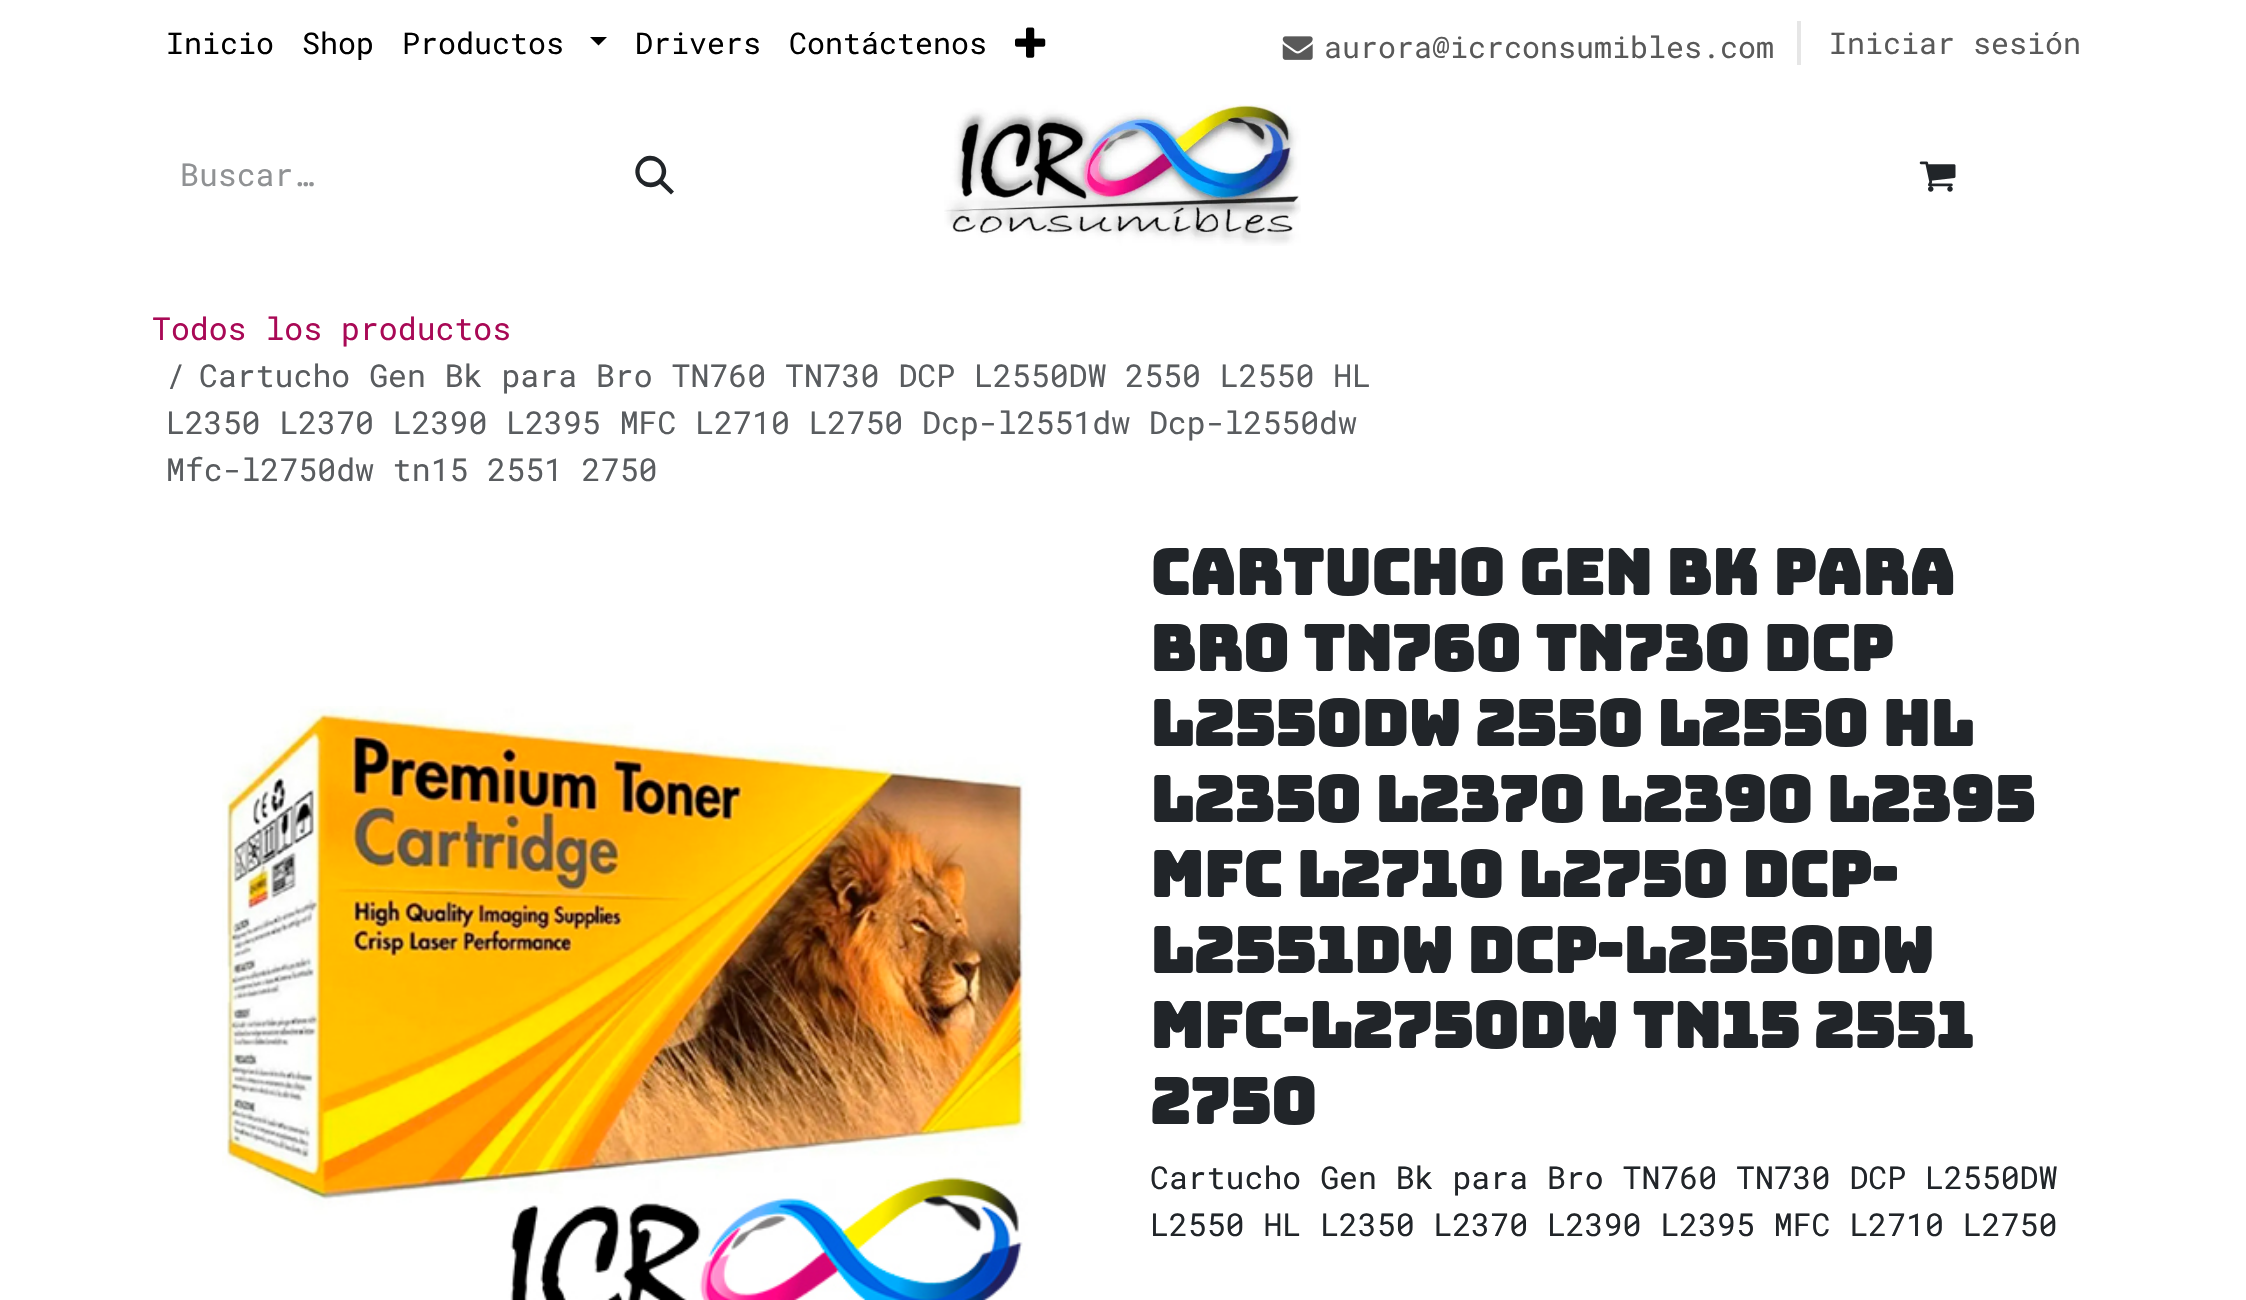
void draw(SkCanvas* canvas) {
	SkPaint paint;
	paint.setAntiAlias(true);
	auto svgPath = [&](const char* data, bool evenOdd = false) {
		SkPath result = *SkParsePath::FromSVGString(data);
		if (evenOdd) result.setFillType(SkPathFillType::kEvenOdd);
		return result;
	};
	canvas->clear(0xffffffff);
	SkFont f1(fontMgr->matchFamilyStyle("Roboto Mono", SkFontStyle::Normal()), 30);
	f1.setSubpixel(true);
	paint.setColor(0xff000000);
	canvas->drawString("Inicio", 166, 54, f1, paint);
	canvas->drawString("Shop", 302, 54, f1, paint);
	canvas->drawString("Productos", 402, 54, f1, paint);
	canvas->drawPath(svgPath("M590 37H607L598.5 45.5Z"), paint);
	canvas->drawString("Drivers", 635, 54, f1, paint);
	canvas->drawString("Contáctenos", 789, 54, f1, paint);
	canvas->drawImageRect(SkImages::DeferredFromEncodedData(SkData::MakeFromFileName("img1.png")), SkRect::MakeXYWH(1015, 27, 31, 31), SkSamplingOptions());
	canvas->drawImageRect(SkImages::DeferredFromEncodedData(SkData::MakeFromFileName("img2.png")), SkRect::MakeXYWH(1282, 36, 31, 24), SkSamplingOptions());
	paint.setColor(0xff595959);
	canvas->drawString("aurora@icrconsumibles.com", 1324, 58, f1, paint);
	paint.setColor(0xffe6e6e6);
	canvas->drawRect(SkRect::MakeXYWH(1797, 21, 4, 44), paint);
	paint.setColor(0xff595959);
	canvas->drawString("Iniciar sesión", 1829, 54, f1, paint);
	SkFont f2(fontMgr->matchFamilyStyle("Roboto Mono", SkFontStyle::Normal()), 31.5);
	f2.setSubpixel(true);
	paint.setColor(0xff909294);
	canvas->drawString("Buscar…", 180, 186, f2, paint);
	paint.setColor(0xff212529);
	canvas->drawPath(svgPath("M639 161.5C651 146 675 165 663 180.5L674 191.5L671 194.5L660 184C645.5 195 627.5 176 639 161.5ZM650.5 160.5C636 160.5 636 182.5 650.5 182.5C665.5 182.5 665.5 160.5 650.5 160.5Z"), paint);
	canvas->drawImageRect(SkImages::DeferredFromEncodedData(SkData::MakeFromFileName("img3.png")), SkRect::MakeXYWH(944, 104, 357, 142), SkSamplingOptions());
	canvas->drawImageRect(SkImages::DeferredFromEncodedData(SkData::MakeFromFileName("img4.png")), SkRect::MakeXYWH(1919, 161, 37, 31), SkSamplingOptions());
	paint.setColor(0xffa90956);
	canvas->drawString("Todos los productos", 152, 340, f2, paint);
	paint.setColor(0xff595c5f);
	canvas->drawString("/", 166, 387, f2, paint);
	canvas->drawString("Cartucho Gen Bk para Bro TN760 TN730 DCP L2550DW 2550 L2550 HL", 199, 387, f2, paint);
	canvas->drawString("L2350 L2370 L2390 L2395 MFC L2710 L2750 Dcp-l2551dw Dcp-l2550dw", 166, 434, f2, paint);
	canvas->drawString("Mfc-l2750dw tn15 2551 2750", 166, 481, f2, paint);
	canvas->drawImageRect(SkImages::DeferredFromEncodedData(SkData::MakeFromFileName("img5.png")), SkRect::MakeXYWH(222, 706, 808, 594), SkSamplingOptions());
	SkFont f3(fontMgr->matchFamilyStyle("Bungee", SkFontStyle::Bold()), 63);
	f3.setSubpixel(true);
	paint.setColor(0xff212529);
	canvas->drawString("Cartucho Gen Bk para", 1150, 595, f3, paint);
	canvas->drawString("Bro TN760 TN730 DCP", 1150, 671, f3, paint);
	canvas->drawString("L2550DW 2550 L2550 HL", 1150, 746, f3, paint);
	canvas->drawString("L2350 L2370 L2390 L2395", 1150, 822, f3, paint);
	canvas->drawString("MFC L2710 L2750 Dcp-", 1150, 897, f3, paint);
	canvas->drawString("l2551dw Dcp-l2550dw", 1150, 973, f3, paint);
	canvas->drawString("Mfc-l2750dw tn15 2551", 1150, 1048, f3, paint);
	canvas->drawString("2750", 1150, 1124, f3, paint);
	canvas->drawString("Cartucho Gen Bk para Bro TN760 TN730 DCP L2550DW", 1150, 1189, f2, paint);
	canvas->drawString("L2550 HL L2350 L2370 L2390 L2395 MFC L2710 L2750", 1150, 1236, f2, paint);
}
